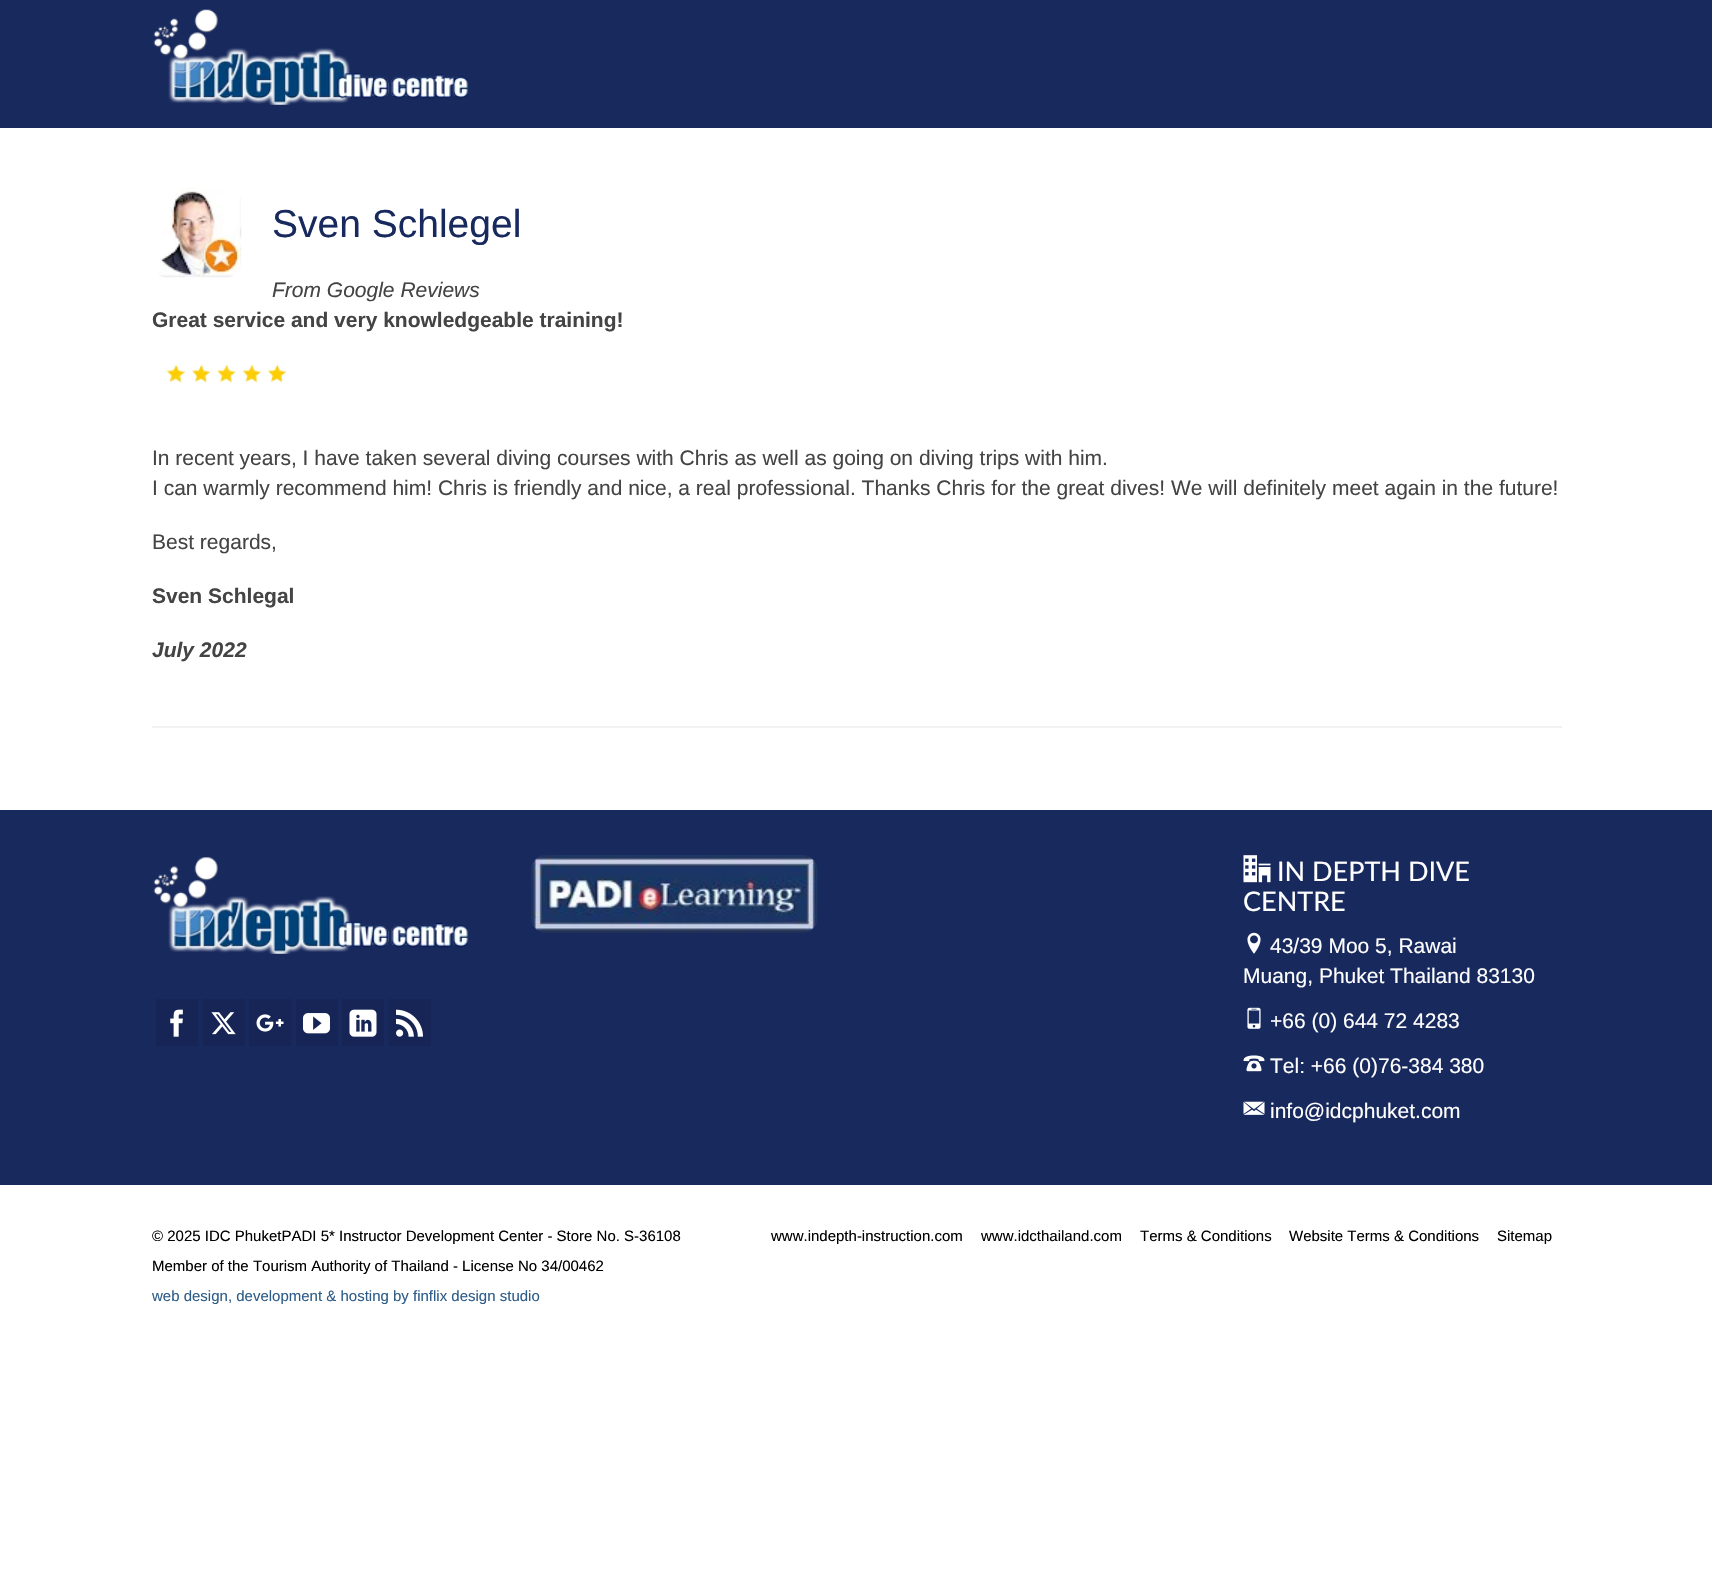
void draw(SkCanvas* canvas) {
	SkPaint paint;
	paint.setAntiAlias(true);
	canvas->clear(0xffffffff);
	paint.setColor(0xff18295e);
	canvas->drawRect(SkRect::MakeXYWH(0, 0, 1712, 128), paint);
	canvas->drawImageRect(SkImages::DeferredFromEncodedData(SkData::MakeFromFileName("img1.png")), SkRect::MakeXYWH(153, 9, 316, 96), SkSamplingOptions());
	canvas->drawImageRect(SkImages::DeferredFromEncodedData(SkData::MakeFromFileName("img2.png")), SkRect::MakeXYWH(159, 188, 83, 90), SkSamplingOptions());
	SkFont f1(fontMgr->matchFamilyStyle("Liberation Sans", SkFontStyle::Normal()), 39);
	f1.setSubpixel(true);
	canvas->drawString("Sven Schlegel", 272, 237, f1, paint);
	SkFont f2(fontMgr->matchFamilyStyle("Liberation Sans", SkFontStyle::Italic()), 21);
	f2.setSubpixel(true);
	paint.setColor(0xff444444);
	canvas->drawString("From Google Reviews", 272, 297, f2, paint);
	SkFont f3(fontMgr->matchFamilyStyle("Liberation Sans", SkFontStyle::Bold()), 21);
	f3.setSubpixel(true);
	canvas->drawString("Great service and very knowledgeable training!", 152, 327, f3, paint);
	canvas->drawImageRect(SkImages::DeferredFromEncodedData(SkData::MakeFromFileName("img3.png")), SkRect::MakeXYWH(166, 364, 121, 19), SkSamplingOptions());
	SkFont f4(fontMgr->matchFamilyStyle("Liberation Sans", SkFontStyle::Normal()), 21);
	f4.setSubpixel(true);
	canvas->drawString("In recent years, I have taken several diving courses with Chris as well as going on diving trips with him.", 152, 465, f4, paint);
	canvas->drawString("I can warmly recommend him! Chris is friendly and nice, a real professional. Thanks Chris for the great dives! We will definitely meet again in the future!", 152, 495, f4, paint);
	canvas->drawString("Best regards,", 152, 549, f4, paint);
	canvas->drawString("Sven Schlegal", 152, 603, f3, paint);
	SkFont f5(fontMgr->matchFamilyStyle("Liberation Sans", SkFontStyle::BoldItalic()), 21);
	f5.setSubpixel(true);
	canvas->drawString("July 2022", 152, 657, f5, paint);
	paint.setColor(0xfff2f2f2);
	canvas->drawRect(SkRect::MakeXYWH(152, 726, 1410, 2), paint);
	paint.setColor(0xff18295e);
	canvas->drawRect(SkRect::MakeXYWH(0, 810, 1712, 375), paint);
	canvas->drawImageRect(SkImages::DeferredFromEncodedData(SkData::MakeFromFileName("img4.png")), SkRect::MakeXYWH(153, 857, 316, 97), SkSamplingOptions());
	paint.setColor(0xff162555);
	canvas->drawRect(SkRect::MakeXYWH(156, 999, 42, 47), paint);
	canvas->drawImageRect(SkImages::DeferredFromEncodedData(SkData::MakeFromFileName("img5.png")), SkRect::MakeXYWH(170, 1009, 13, 28), SkSamplingOptions());
	canvas->drawRect(SkRect::MakeXYWH(203, 999, 42, 47), paint);
	canvas->drawImageRect(SkImages::DeferredFromEncodedData(SkData::MakeFromFileName("img6.png")), SkRect::MakeXYWH(211, 1012, 25, 23), SkSamplingOptions());
	canvas->drawRect(SkRect::MakeXYWH(249, 999, 42, 47), paint);
	canvas->drawImageRect(SkImages::DeferredFromEncodedData(SkData::MakeFromFileName("img7.png")), SkRect::MakeXYWH(256, 1014, 28, 18), SkSamplingOptions());
	canvas->drawRect(SkRect::MakeXYWH(296, 999, 42, 47), paint);
	canvas->drawImageRect(SkImages::DeferredFromEncodedData(SkData::MakeFromFileName("img8.png")), SkRect::MakeXYWH(303, 1013, 27, 21), SkSamplingOptions());
	canvas->drawRect(SkRect::MakeXYWH(342, 999, 42, 47), paint);
	canvas->drawImageRect(SkImages::DeferredFromEncodedData(SkData::MakeFromFileName("img9.png")), SkRect::MakeXYWH(349, 1009, 28, 28), SkSamplingOptions());
	canvas->drawRect(SkRect::MakeXYWH(389, 999, 42, 47), paint);
	canvas->drawImageRect(SkImages::DeferredFromEncodedData(SkData::MakeFromFileName("img10.png")), SkRect::MakeXYWH(396, 1009, 27, 28), SkSamplingOptions());
	canvas->drawImageRect(SkImages::DeferredFromEncodedData(SkData::MakeFromFileName("img11.png")), SkRect::MakeXYWH(531, 855, 287, 78), SkSamplingOptions());
	canvas->drawImageRect(SkImages::DeferredFromEncodedData(SkData::MakeFromFileName("img12.png")), SkRect::MakeXYWH(1243, 855, 28, 28), SkSamplingOptions());
	SkFont f6(fontMgr->matchFamilyStyle("Lato", SkFontStyle::Normal()), 27);
	f6.setSubpixel(true);
	paint.setColor(0xffffffff);
	canvas->drawString("IN DEPTH DIVE", 1277, 881, f6, paint);
	canvas->drawString("CENTRE", 1243, 911, f6, paint);
	canvas->drawImageRect(SkImages::DeferredFromEncodedData(SkData::MakeFromFileName("img13.png")), SkRect::MakeXYWH(1247, 932, 14, 22), SkSamplingOptions());
	canvas->drawString("43/39 Moo 5, Rawai", 1270, 953, f4, paint);
	canvas->drawString("Muang, Phuket Thailand 83130", 1243, 983, f4, paint);
	canvas->drawImageRect(SkImages::DeferredFromEncodedData(SkData::MakeFromFileName("img14.png")), SkRect::MakeXYWH(1247, 1007, 14, 22), SkSamplingOptions());
	canvas->drawString("+66 (0) 644 72 4283", 1270, 1028, f4, paint);
	canvas->drawImageRect(SkImages::DeferredFromEncodedData(SkData::MakeFromFileName("img15.png")), SkRect::MakeXYWH(1243, 1055, 22, 17), SkSamplingOptions());
	canvas->drawString("Tel: +66 (0)76-384 380", 1270, 1073, f4, paint);
	canvas->drawImageRect(SkImages::DeferredFromEncodedData(SkData::MakeFromFileName("img16.png")), SkRect::MakeXYWH(1243, 1101, 22, 14), SkSamplingOptions());
	canvas->drawString("info@idcphuket.com", 1270, 1118, f4, paint);
	SkFont f7(fontMgr->matchFamilyStyle("Liberation Sans", SkFontStyle::Normal()), 15);
	f7.setSubpixel(true);
	paint.setColor(0xff000000);
	canvas->drawString("© 2025 IDC PhuketPADI 5* Instructor Development Center - Store No. S-36108", 152, 1241, f7, paint);
	canvas->drawString("Member of the Tourism Authority of Thailand - License No 34/00462", 152, 1271, f7, paint);
	paint.setColor(0xff2d5c88);
	canvas->drawString("web design, development & hosting by finflix design studio", 152, 1301, f7, paint);
	paint.setColor(0xff000000);
	canvas->drawString("www.indepth-instruction.com", 771, 1241, f7, paint);
	canvas->drawString("www.idcthailand.com", 981, 1241, f7, paint);
	canvas->drawString("Terms & Conditions", 1140, 1241, f7, paint);
	canvas->drawString("Website Terms & Conditions", 1289, 1241, f7, paint);
	canvas->drawString("Sitemap", 1497, 1241, f7, paint);
}
